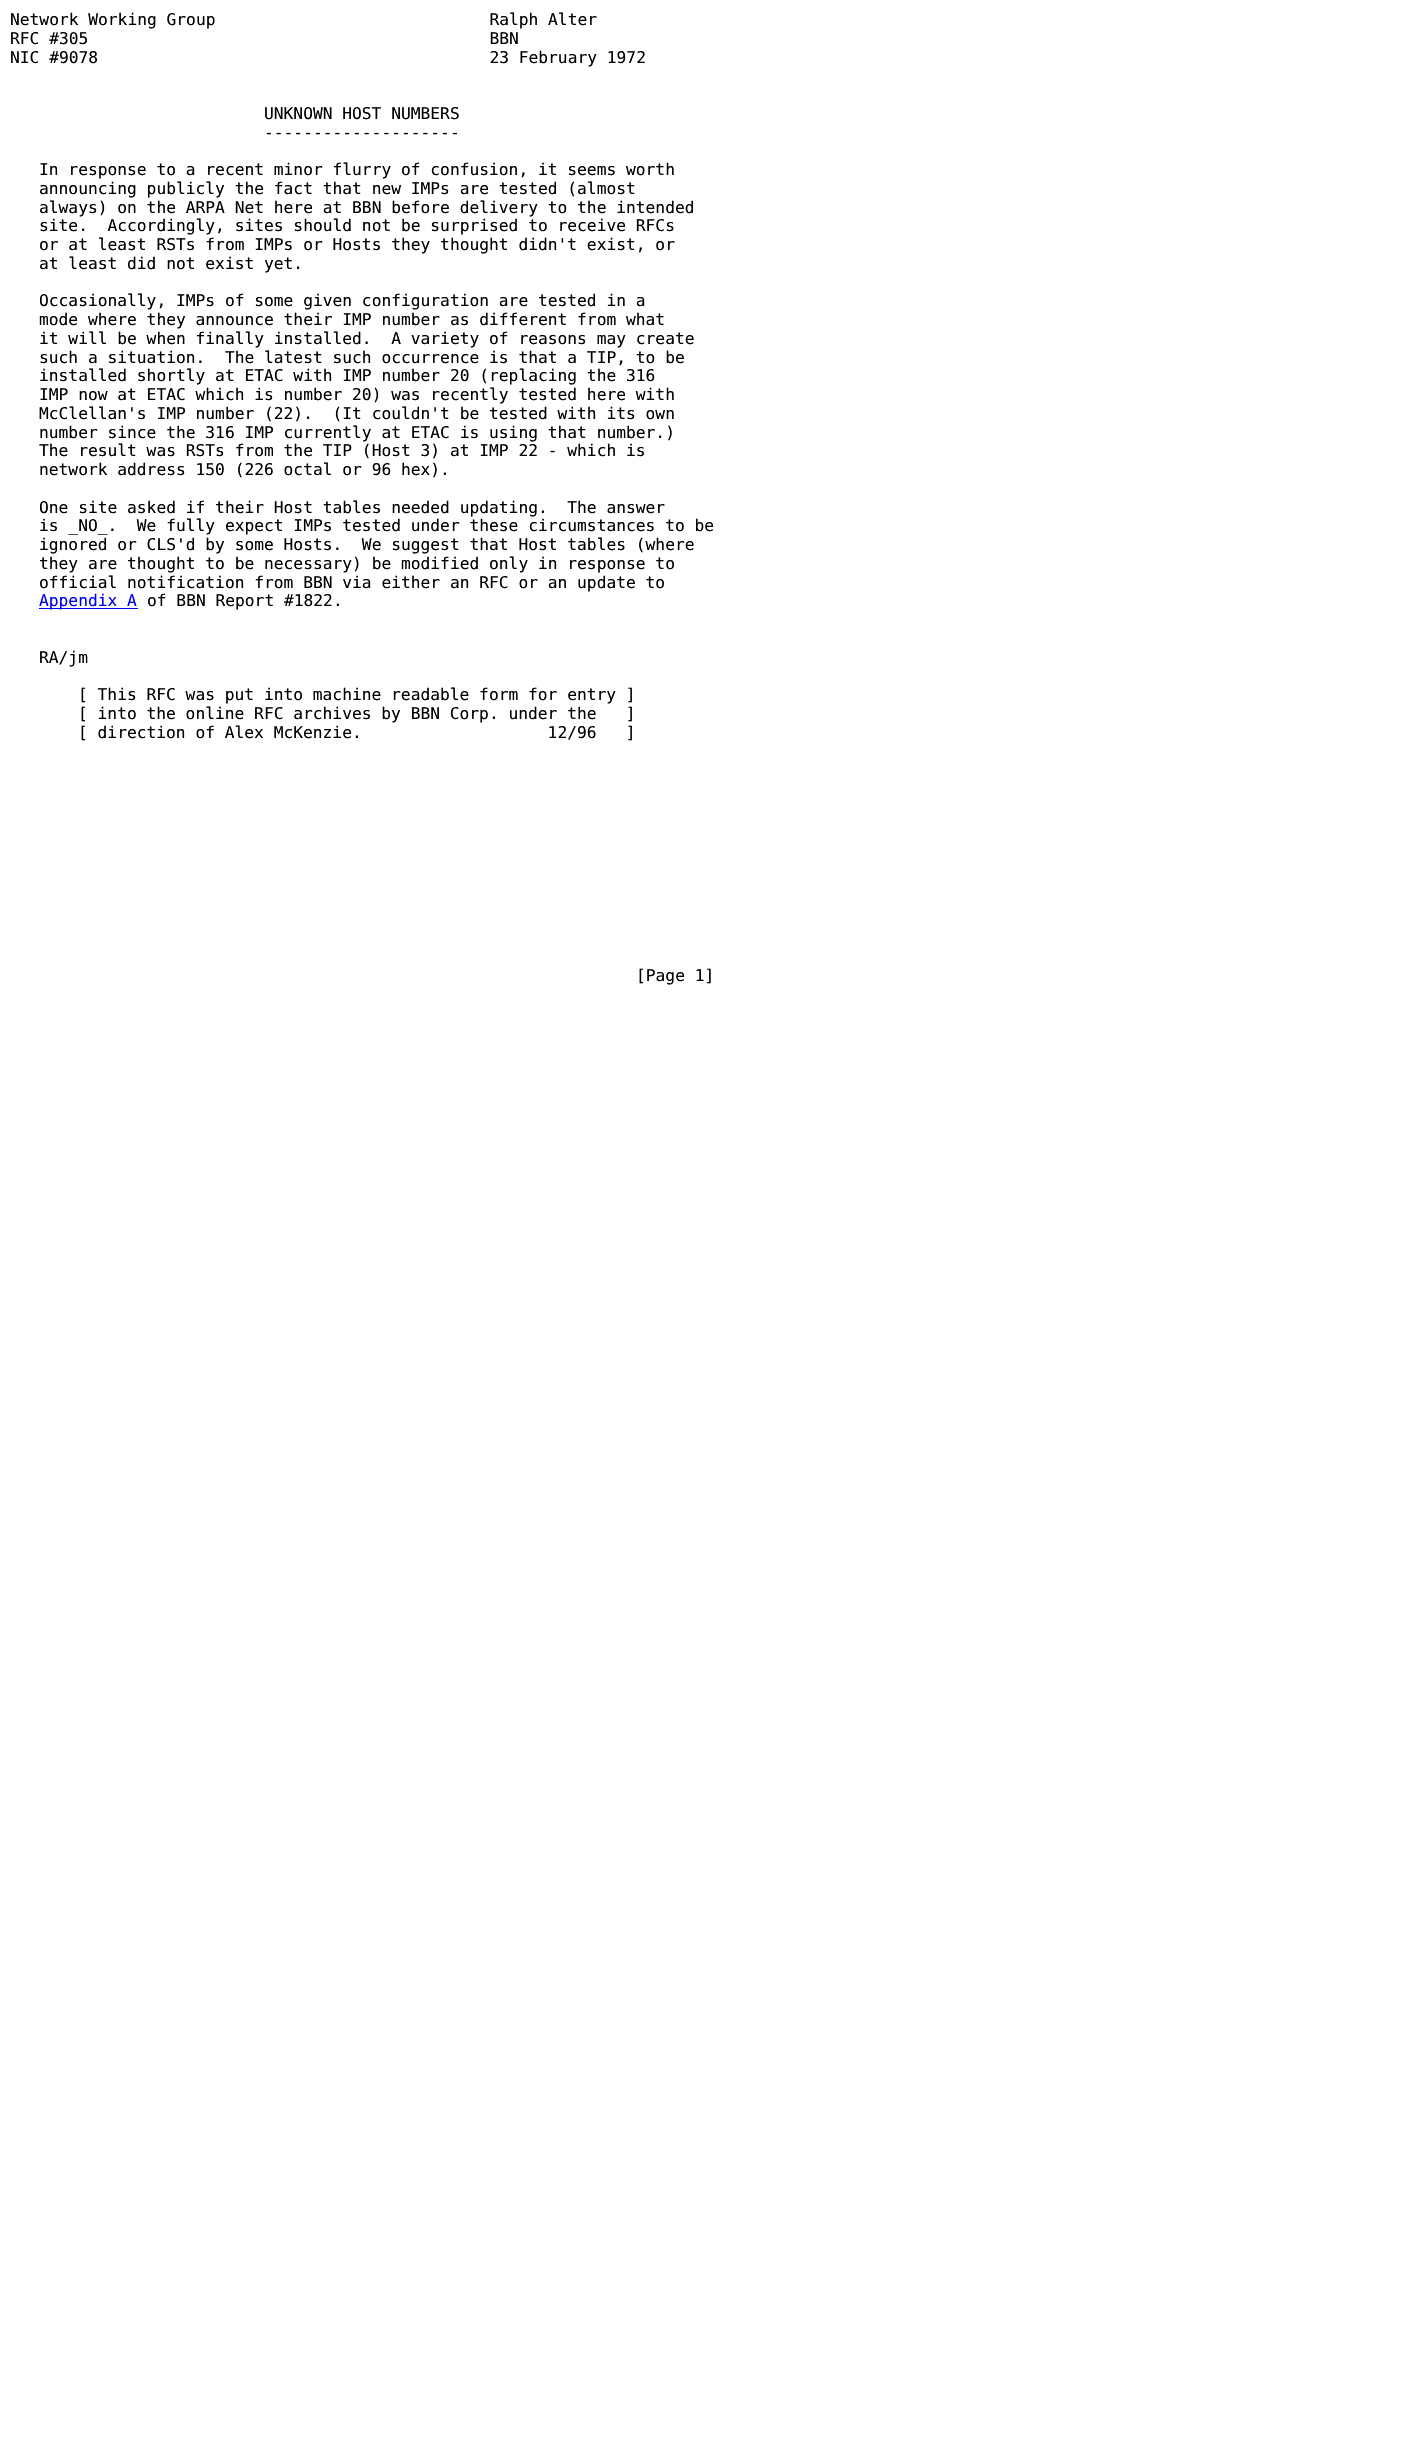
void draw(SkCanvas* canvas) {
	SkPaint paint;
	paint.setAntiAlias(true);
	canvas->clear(0xffffffff);
	SkFont f1(fontMgr->matchFamilyStyle("DejaVu Sans Mono", SkFontStyle::Normal()), 16.25);
	f1.setSubpixel(true);
	paint.setColor(0xff000000);
	canvas->drawString("Network Working Group                            Ralph Alter", 10, 25, f1, paint);
	canvas->drawString("RFC #305                                         BBN", 10, 44, f1, paint);
	canvas->drawString("NIC #9078                                        23 February 1972", 10, 63, f1, paint);
	canvas->drawString("UNKNOWN HOST NUMBERS", 264, 119, f1, paint);
	canvas->drawString("--------------------", 264, 138, f1, paint);
	canvas->drawString("In response to a recent minor flurry of confusion, it seems worth", 39, 175, f1, paint);
	canvas->drawString("announcing publicly the fact that new IMPs are tested (almost", 39, 194, f1, paint);
	canvas->drawString("always) on the ARPA Net here at BBN before delivery to the intended", 39, 213, f1, paint);
	canvas->drawString("site.  Accordingly, sites should not be surprised to receive RFCs", 39, 231, f1, paint);
	canvas->drawString("or at least RSTs from IMPs or Hosts they thought didn't exist, or", 39, 250, f1, paint);
	canvas->drawString("at least did not exist yet.", 39, 269, f1, paint);
	canvas->drawString("Occasionally, IMPs of some given configuration are tested in a", 39, 306, f1, paint);
	canvas->drawString("mode where they announce their IMP number as different from what", 39, 325, f1, paint);
	canvas->drawString("it will be when finally installed.  A variety of reasons may create", 39, 344, f1, paint);
	canvas->drawString("such a situation.  The latest such occurrence is that a TIP, to be", 39, 363, f1, paint);
	canvas->drawString("installed shortly at ETAC with IMP number 20 (replacing the 316", 39, 381, f1, paint);
	canvas->drawString("IMP now at ETAC which is number 20) was recently tested here with", 39, 400, f1, paint);
	canvas->drawString("McClellan's IMP number (22).  (It couldn't be tested with its own", 39, 419, f1, paint);
	canvas->drawString("number since the 316 IMP currently at ETAC is using that number.)", 39, 438, f1, paint);
	canvas->drawString("The result was RSTs from the TIP (Host 3) at IMP 22 - which is", 39, 456, f1, paint);
	canvas->drawString("network address 150 (226 octal or 96 hex).", 39, 475, f1, paint);
	canvas->drawString("One site asked if their Host tables needed updating.  The answer", 39, 513, f1, paint);
	canvas->drawString("is _NO_.  We fully expect IMPs tested under these circumstances to be", 39, 531, f1, paint);
	canvas->drawString("ignored or CLS'd by some Hosts.  We suggest that Host tables (where", 39, 550, f1, paint);
	canvas->drawString("they are thought to be necessary) be modified only in response to", 39, 569, f1, paint);
	canvas->drawString("official notification from BBN via either an RFC or an update to", 39, 588, f1, paint);
	paint.setColor(0xff0000ee);
	canvas->drawRect(SkRect::MakeXYWH(39, 608, 99, 1), paint);
	canvas->drawString("Appendix A", 39, 606, f1, paint);
	paint.setColor(0xff000000);
	canvas->drawString("of BBN Report #1822.", 147, 606, f1, paint);
	canvas->drawString("RA/jm", 39, 663, f1, paint);
	canvas->drawString("[ This RFC was put into machine readable form for entry ]", 78, 700, f1, paint);
	canvas->drawString("[ into the online RFC archives by BBN Corp. under the   ]", 78, 719, f1, paint);
	canvas->drawString("[ direction of Alex McKenzie.                   12/96   ]", 78, 738, f1, paint);
	canvas->drawString("[Page 1]", 636, 981, f1, paint);
}
